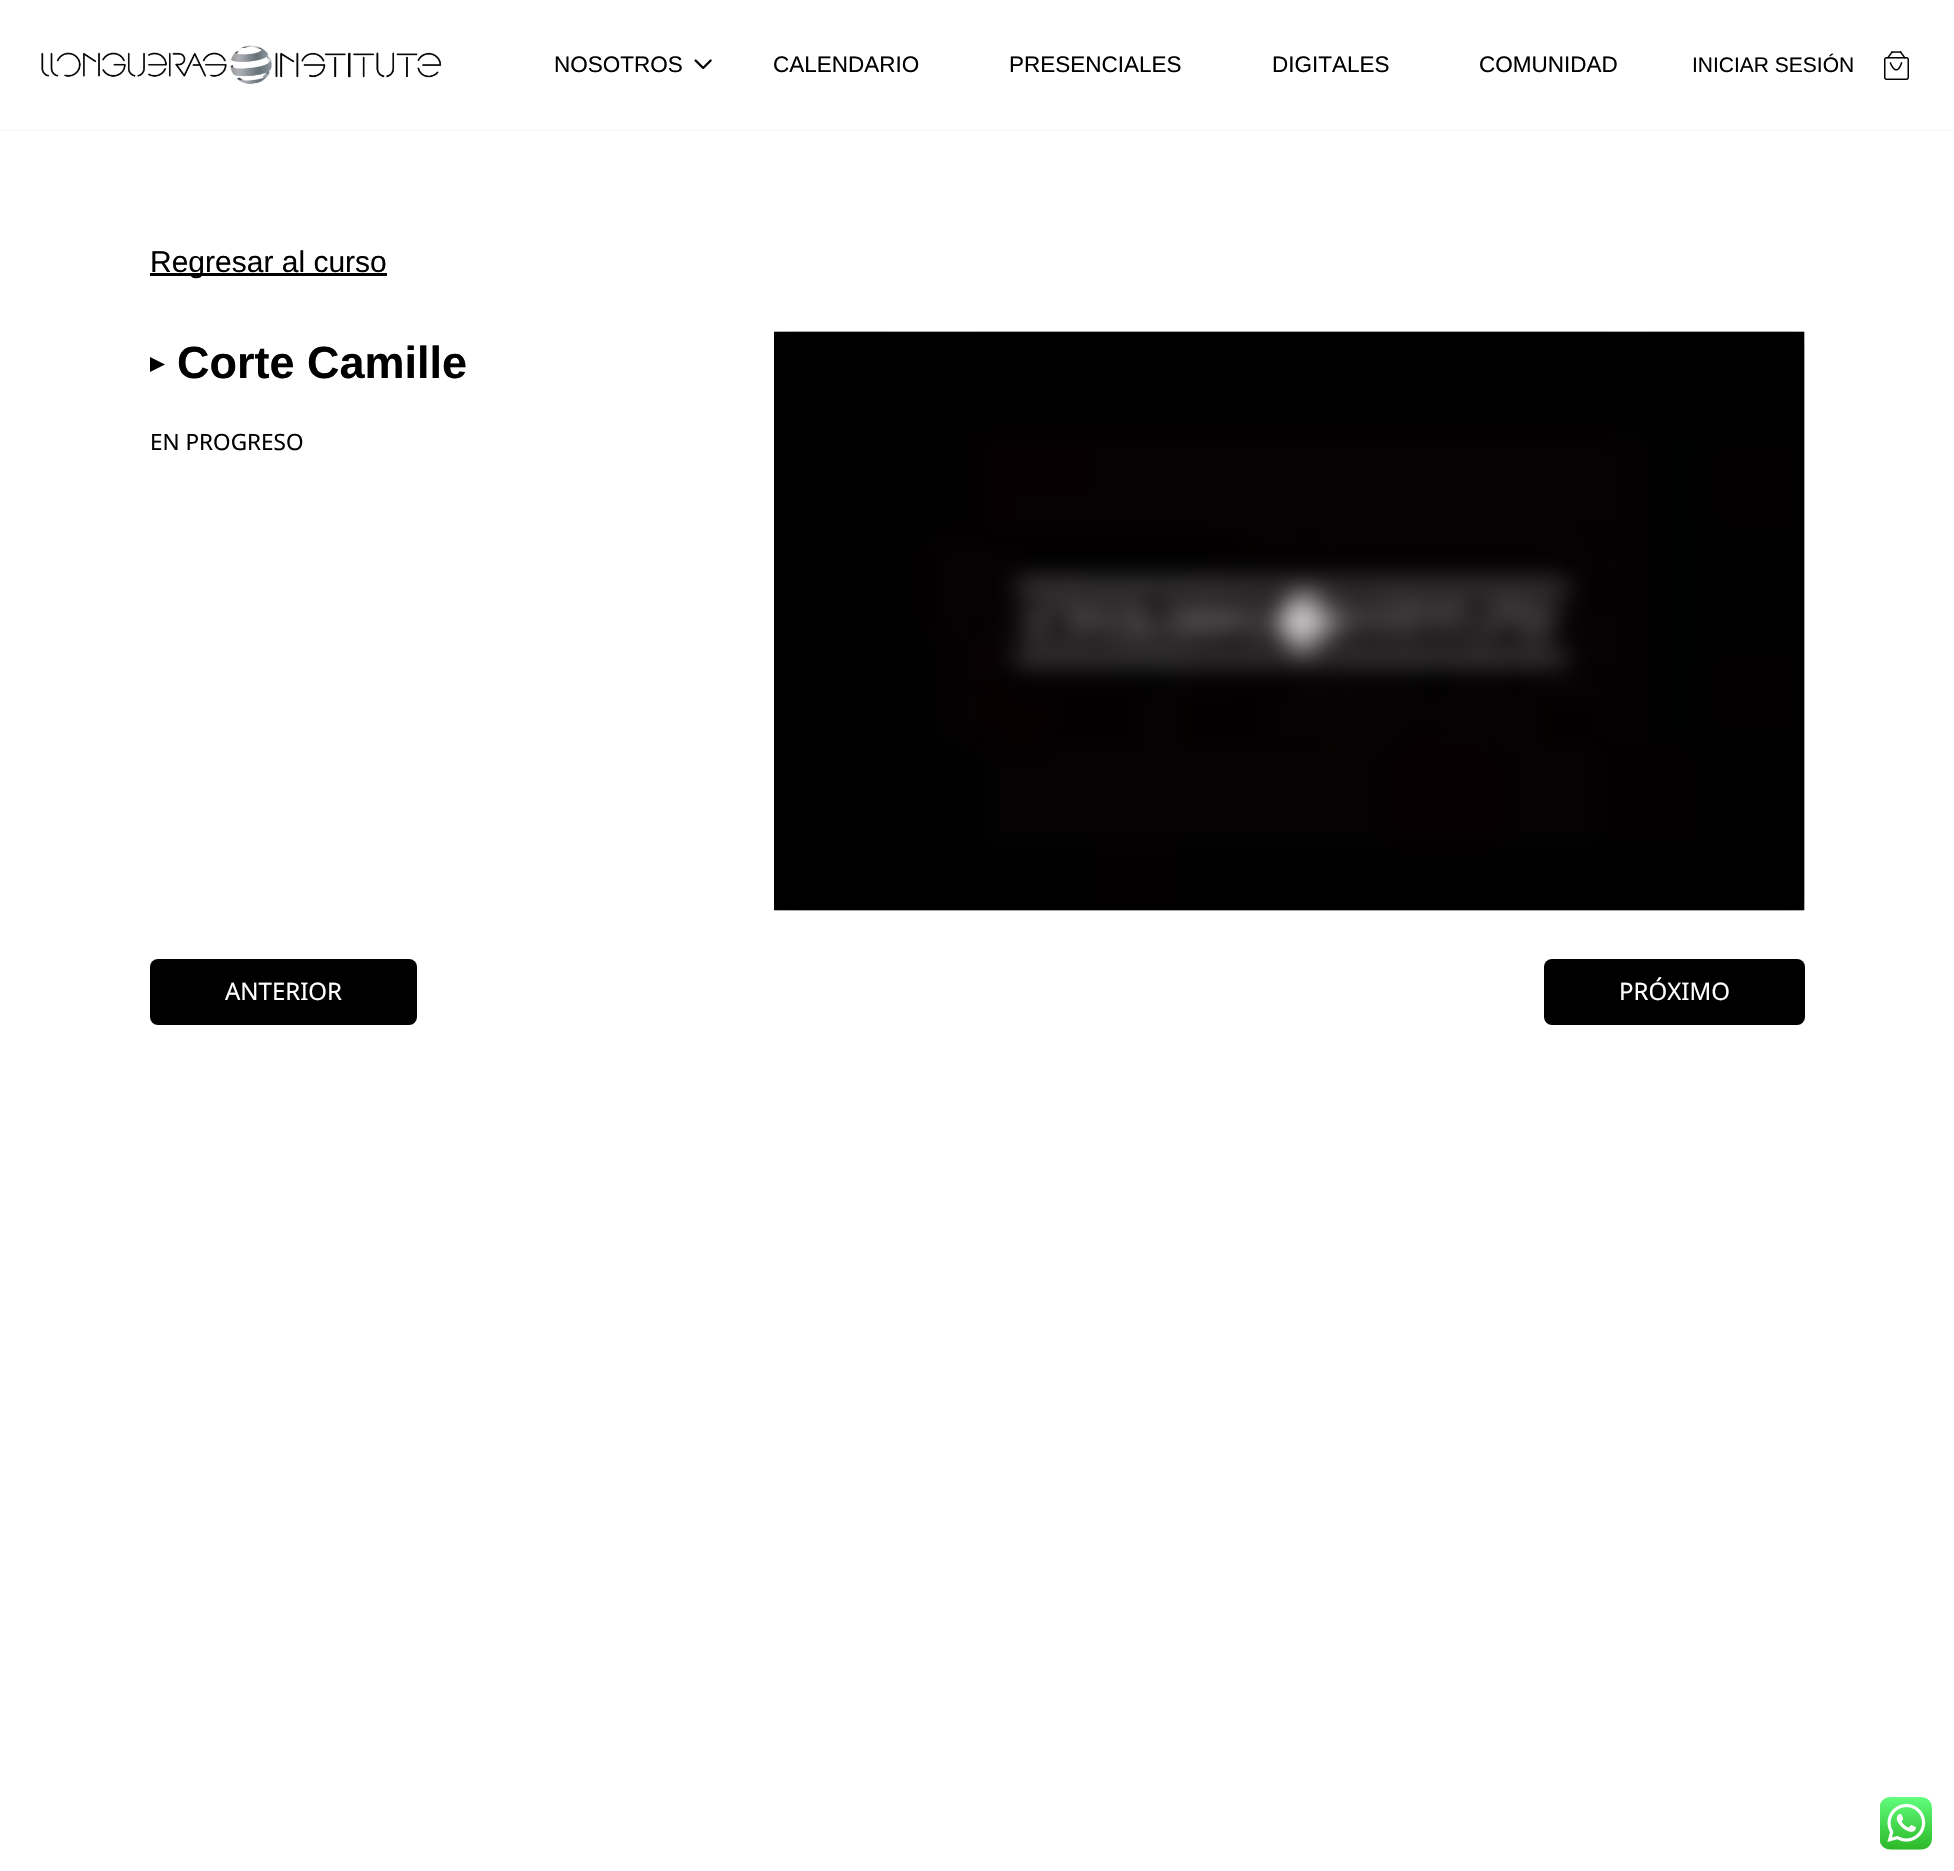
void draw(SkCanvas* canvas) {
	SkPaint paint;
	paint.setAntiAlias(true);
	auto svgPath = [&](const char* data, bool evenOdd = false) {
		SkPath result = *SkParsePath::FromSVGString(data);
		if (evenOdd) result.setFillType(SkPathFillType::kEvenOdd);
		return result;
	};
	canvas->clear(0xffffffff);
	paint.setColor(0x0d8b8d9d);
	canvas->drawPath(svgPath("M0 129V131H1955V2H1954V129Z"), paint);
	canvas->drawImageRect(SkImages::DeferredFromEncodedData(SkData::MakeFromFileName("img1.png")), SkRect::MakeXYWH(41, 45, 401, 39), SkSamplingOptions());
	SkFont f1(fontMgr->matchFamilyStyle("Liberation Sans", SkFontStyle::Normal()), 22.5);
	f1.setSubpixel(true);
	paint.setColor(0xff000000);
	canvas->drawString("NOSOTROS", 554, 72, f1, paint);
	canvas->drawImageRect(SkImages::DeferredFromEncodedData(SkData::MakeFromFileName("img2.png")), SkRect::MakeXYWH(694, 59, 18, 11), SkSamplingOptions());
	canvas->drawString("CALENDARIO", 773, 72, f1, paint);
	canvas->drawString("PRESENCIALES", 1009, 72, f1, paint);
	canvas->drawString("DIGITALES", 1272, 72, f1, paint);
	canvas->drawString("COMUNIDAD", 1479, 72, f1, paint);
	SkFont f2(fontMgr->matchFamilyStyle("Liberation Sans", SkFontStyle::Normal()), 21);
	f2.setSubpixel(true);
	canvas->drawString("INICIAR SESIÓN", 1692, 72, f2, paint);
	canvas->drawImageRect(SkImages::DeferredFromEncodedData(SkData::MakeFromFileName("img3.png")), SkRect::MakeXYWH(1884, 51, 25, 29), SkSamplingOptions());
	canvas->drawRect(SkRect::MakeXYWH(150, 273, 237, 3), paint);
	SkFont f3(fontMgr->matchFamilyStyle("Liberation Sans", SkFontStyle::Normal()), 30);
	f3.setSubpixel(true);
	canvas->drawString("Regresar al curso", 150, 272, f3, paint);
	canvas->drawPath(svgPath("M150 357V372L165 364.5Z"), paint);
	SkFont f4(fontMgr->matchFamilyStyle("Liberation Sans", SkFontStyle::Bold()), 45);
	f4.setSubpixel(true);
	canvas->drawString("Corte Camille", 177, 378, f4, paint);
	SkFont f5(fontMgr->matchFamilyStyle("Noto Sans", SkFontStyle::Normal()), 22.5);
	f5.setSubpixel(true);
	canvas->drawString("EN PROGRESO", 150, 450, f5, paint);
	canvas->drawImageRect(SkImages::DeferredFromEncodedData(SkData::MakeFromFileName("img4.png")), SkRect::MakeXYWH(774, 331, 1031, 580), SkSamplingOptions());
	canvas->drawRoundRect(SkRect::MakeXYWH(150, 959, 267, 66), 8, 8, paint);
	SkFont f6(fontMgr->matchFamilyStyle("Noto Sans", SkFontStyle::Normal()), 24);
	f6.setSubpixel(true);
	paint.setColor(0xffffffff);
	canvas->drawString("ANTERIOR", 225, 1000, f6, paint);
	paint.setColor(0xff000000);
	canvas->drawRoundRect(SkRect::MakeXYWH(1544, 959, 261, 66), 8, 8, paint);
	paint.setColor(0xffffffff);
	canvas->drawString("PRÓXIMO", 1619, 1000, f6, paint);
	canvas->drawImageRect(SkImages::DeferredFromEncodedData(SkData::MakeFromFileName("img5.png")), SkRect::MakeXYWH(1880, 1797, 52, 53), SkSamplingOptions());
}
